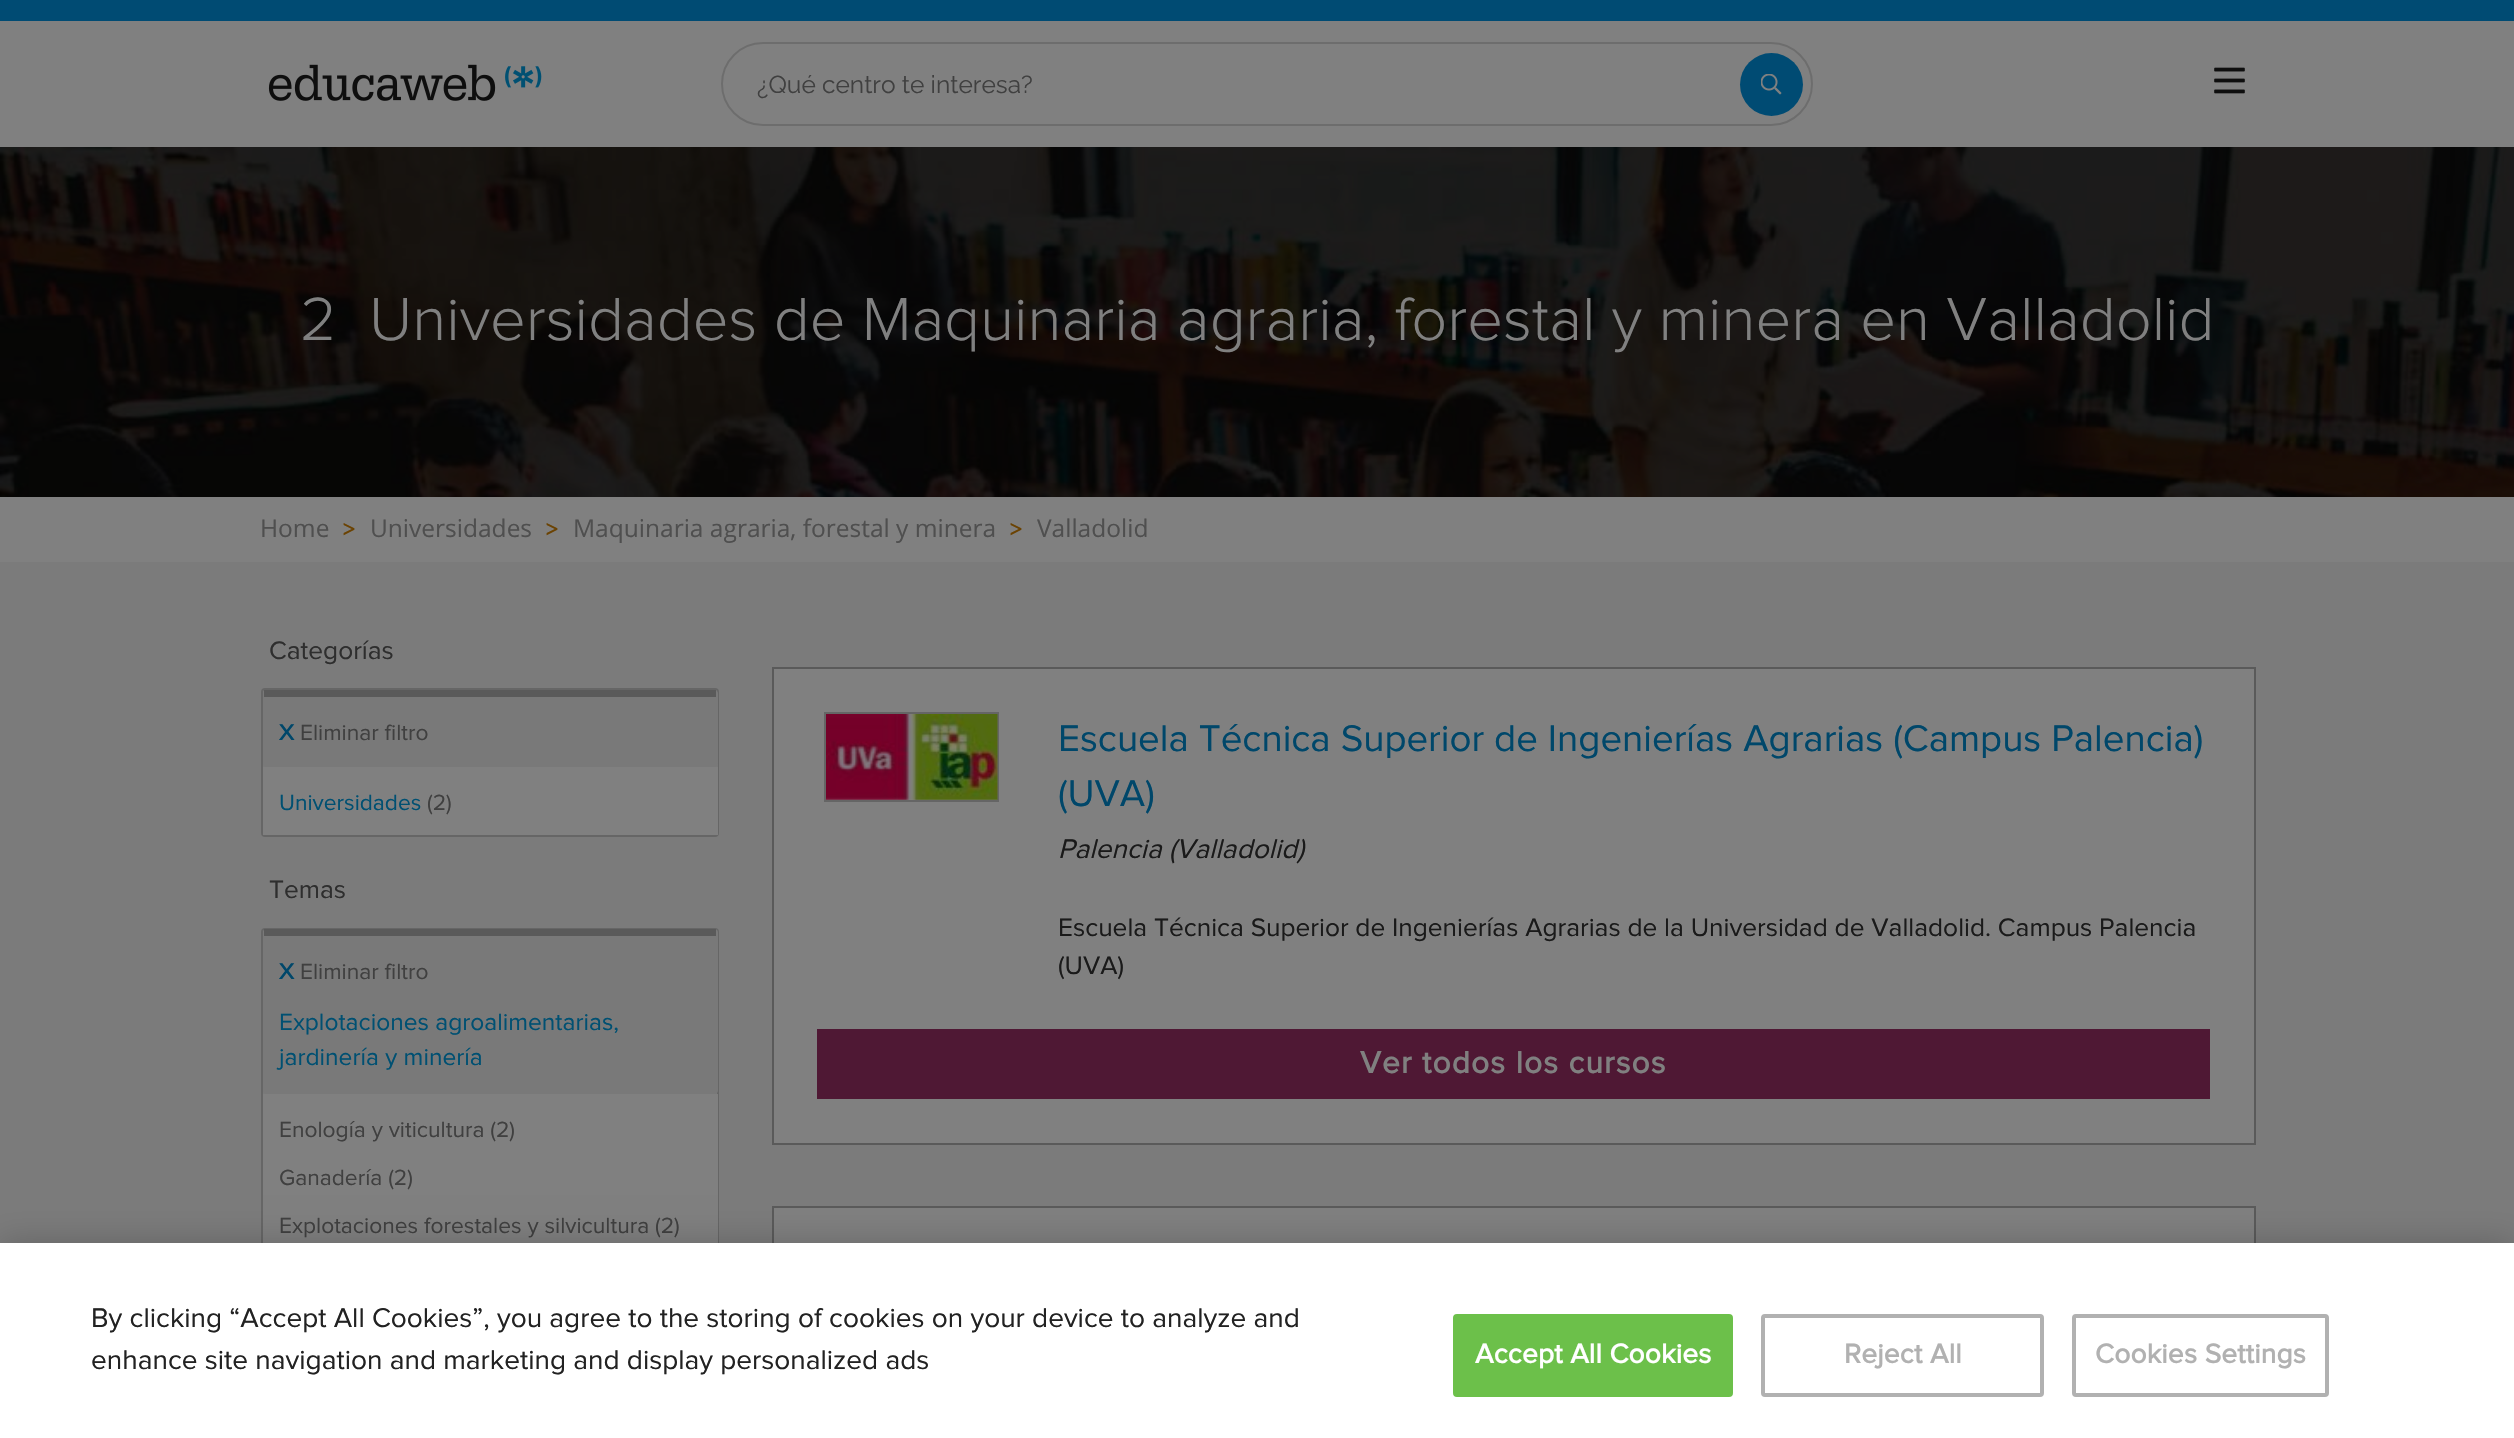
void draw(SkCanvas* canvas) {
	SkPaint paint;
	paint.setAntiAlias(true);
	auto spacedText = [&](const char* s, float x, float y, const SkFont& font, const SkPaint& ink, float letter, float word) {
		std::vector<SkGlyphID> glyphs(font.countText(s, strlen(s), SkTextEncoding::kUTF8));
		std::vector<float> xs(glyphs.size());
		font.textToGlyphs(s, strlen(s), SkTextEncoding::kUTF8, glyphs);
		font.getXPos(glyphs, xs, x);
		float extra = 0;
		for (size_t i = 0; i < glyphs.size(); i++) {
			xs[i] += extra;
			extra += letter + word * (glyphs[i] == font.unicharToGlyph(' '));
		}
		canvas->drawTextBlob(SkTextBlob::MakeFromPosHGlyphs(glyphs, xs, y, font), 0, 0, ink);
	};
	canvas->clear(0xff7b7b7b);
	paint.setColor(0xff808080);
	canvas->drawRect(SkRect::MakeXYWH(0, 21, 2514, 126), paint);
	paint.setColor(0xff004b73);
	canvas->drawRect(SkRect::MakeXYWH(0, 0, 2514, 21), paint);
	canvas->drawImageRect(SkImages::DeferredFromEncodedData(SkData::MakeFromFileName("img1.png")), SkRect::MakeXYWH(268, 64, 274, 37), SkSamplingOptions());
	paint.setStroke(true);
	paint.setStrokeWidth(2);
	paint.setColor(0xff6d6d6d);
	canvas->drawRoundRect(SkRect::MakeXYWH(722, 43, 1090, 82), 41, 41, paint);
	SkFont f1(fontMgr->matchFamilyStyle("Raleway", SkFontStyle::Normal()), 24.5);
	f1.setSubpixel(true);
	paint.setStroke(false);
	paint.setColor(0xff404040);
	canvas->drawString("¿Qué centro te interesa?", 757, 93, f1, paint);
	paint.setColor(0xff004b73);
	canvas->drawCircle(1771.5, 84.5, 31.5, paint);
	canvas->drawImageRect(SkImages::DeferredFromEncodedData(SkData::MakeFromFileName("img2.png")), SkRect::MakeXYWH(1761, 74, 21, 21), SkSamplingOptions());
	canvas->drawImageRect(SkImages::DeferredFromEncodedData(SkData::MakeFromFileName("img3.png")), SkRect::MakeXYWH(2214, 67, 31, 27), SkSamplingOptions());
	canvas->drawImageRect(SkImages::DeferredFromEncodedData(SkData::MakeFromFileName("img4.png")), SkRect::MakeXYWH(0, 147, 2514, 350), SkSamplingOptions());
	SkFont f2(fontMgr->matchFamilyStyle("Proxima Nova", SkFontStyle(300, SkFontStyle::kNormal_Width, SkFontStyle::kUpright_Slant)), 63);
	f2.setSubpixel(true);
	paint.setColor(0xff808080);
	canvas->drawString("2", 300, 340, f2, paint);
	canvas->drawString("Universidades de Maquinaria agraria, forestal y minera en Valladolid", 369, 340, f2, paint);
	canvas->drawRect(SkRect::MakeXYWH(0, 497, 2514, 65), paint);
	SkFont f3(fontMgr->matchFamilyStyle("Open Sans", SkFontStyle::Normal()), 24.5);
	f3.setSubpixel(true);
	paint.setColor(0xff4f4f4f);
	canvas->drawString("Home", 260, 537, f3, paint);
	SkFont f4(fontMgr->matchFamilyStyle("Proxima Nova", SkFontStyle::Bold()), 22.75);
	f4.setSubpixel(true);
	paint.setColor(0xff6b4303);
	canvas->drawString(">", 343, 537, f4, paint);
	paint.setColor(0xff4f4f4f);
	canvas->drawString("Universidades", 370, 537, f3, paint);
	paint.setColor(0xff6b4303);
	canvas->drawString(">", 546, 537, f4, paint);
	paint.setColor(0xff4f4f4f);
	canvas->drawString("Maquinaria agraria, forestal y minera", 573, 537, f3, paint);
	paint.setColor(0xff6b4303);
	canvas->drawString(">", 1010, 537, f4, paint);
	paint.setColor(0xff4f4f4f);
	canvas->drawString("Valladolid", 1037, 537, f3, paint);
	SkFont f5(fontMgr->matchFamilyStyle("Proxima Nova", SkFontStyle::Normal()), 26.25);
	f5.setSubpixel(true);
	paint.setColor(0xff2e2e2e);
	canvas->drawString("Categorías", 269, 659, f5, paint);
	paint.setStroke(true);
	paint.setColor(0xff666666);
	canvas->drawRoundRect(SkRect::MakeXYWH(262, 689, 456, 147), 3, 3, paint);
	paint.setStroke(false);
	paint.setColor(0xff797979);
	canvas->drawRoundRect(SkRect::MakeXYWH(263, 690, 455, 77), 4, 4, paint);
	paint.setColor(0xff5a5a5a);
	canvas->drawRect(SkRect::MakeXYWH(264, 690, 452, 7), paint);
	paint.setColor(0xff797979);
	canvas->drawRect(SkRect::MakeXYWH(717, 764, 1, 3), paint);
	paint.setColor(0xff00476a);
	canvas->drawString("X", 279, 740, f4, paint);
	SkFont f6(fontMgr->matchFamilyStyle("Proxima Nova", SkFontStyle::Normal()), 22.75);
	f6.setSubpixel(true);
	paint.setColor(0xff404040);
	canvas->drawString("Eliminar filtro", 300, 740, f6, paint);
	paint.setColor(0xff808080);
	canvas->drawRect(SkRect::MakeXYWH(263, 767, 455, 68), paint);
	paint.setColor(0xff005072);
	canvas->drawString("Universidades", 279, 810, f6, paint);
	paint.setColor(0xff404040);
	canvas->drawString("(2)", 427, 810, f6, paint);
	paint.setColor(0xff2e2e2e);
	canvas->drawString("Temas", 269, 898, f5, paint);
	paint.setStroke(true);
	paint.setColor(0xff666666);
	canvas->drawRoundRect(SkRect::MakeXYWH(262, 929, 456, 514), 3, 3, paint);
	paint.setStroke(false);
	paint.setColor(0xff797979);
	canvas->drawRoundRect(SkRect::MakeXYWH(263, 929, 455, 165), 4, 4, paint);
	paint.setColor(0xff5a5a5a);
	canvas->drawRect(SkRect::MakeXYWH(264, 929, 452, 7), paint);
	paint.setColor(0xff00476a);
	canvas->drawString("X", 279, 979, f4, paint);
	paint.setColor(0xff404040);
	canvas->drawString("Eliminar filtro", 300, 979, f6, paint);
	SkFont f7(fontMgr->matchFamilyStyle("Proxima Nova", SkFontStyle::Normal()), 24.5);
	f7.setSubpixel(true);
	paint.setColor(0xff005072);
	canvas->drawString("Explotaciones agroalimentarias,", 279, 1030, f7, paint);
	canvas->drawString("jardinería y minería", 279, 1065, f7, paint);
	paint.setColor(0xff808080);
	canvas->drawRect(SkRect::MakeXYWH(263, 1094, 455, 149), paint);
	paint.setColor(0xff404040);
	canvas->drawString("Enología y viticultura (2)", 279, 1137, f6, paint);
	canvas->drawString("Ganadería (2)", 279, 1185, f6, paint);
	canvas->drawString("Explotaciones forestales y silvicultura (2)", 279, 1233, f6, paint);
	paint.setColor(0xff808080);
	canvas->drawRect(SkRect::MakeXYWH(773, 668, 1482, 476), paint);
	paint.setStroke(true);
	paint.setColor(0xff5a5a5a);
	canvas->drawRect(SkRect::MakeXYWH(773, 668, 1482, 476), paint);
	paint.setColor(0xff656565);
	canvas->drawRect(SkRect::MakeXYWH(825, 713, 173, 88), paint);
	canvas->drawImageRect(SkImages::DeferredFromEncodedData(SkData::MakeFromFileName("img5.png")), SkRect::MakeXYWH(826, 714, 172, 86), SkSamplingOptions());
	SkFont f8(fontMgr->matchFamilyStyle("Proxima Nova", SkFontStyle::Normal()), 38.5);
	f8.setSubpixel(true);
	paint.setStroke(false);
	paint.setColor(0xff00476a);
	canvas->drawString("Escuela Técnica Superior de Ingenierías Agrarias (Campus Palencia)", 1058, 751, f8, paint);
	canvas->drawString("(UVA)", 1058, 806, f8, paint);
	SkFont f9(fontMgr->matchFamilyStyle("Proxima Nova", SkFontStyle::Italic()), 28);
	f9.setSubpixel(true);
	paint.setColor(0xff1a1a1a);
	canvas->drawString("Palencia (Valladolid)", 1058, 858, f9, paint);
	canvas->drawString("Escuela Técnica Superior de Ingenierías Agrarias de la Universidad de Valladolid. Campus Palencia", 1058, 936, f5, paint);
	canvas->drawString("(UVA)", 1058, 974, f5, paint);
	paint.setColor(0xff4f1834);
	canvas->drawRect(SkRect::MakeXYWH(817, 1029, 1393, 70), paint);
	SkFont f10(fontMgr->matchFamilyStyle("Proxima Nova", SkFontStyle::Bold()), 31.5);
	f10.setSubpixel(true);
	paint.setColor(0xff808080);
	spacedText("Ver todos los cursos", 1360, 1073, f10, paint, 1.25, 0);
	canvas->drawRect(SkRect::MakeXYWH(774, 1208, 1480, 35), paint);
	paint.setStroke(true);
	paint.setColor(0xff5a5a5a);
	canvas->drawRect(SkRect::MakeXYWH(773, 1207, 1482, 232), paint);
	paint.setStroke(false);
	paint.setColor(0x33000000);
	paint.setMaskFilter(SkMaskFilter::MakeBlur(kNormal_SkBlurStyle, 16));
	canvas->drawRect(SkRect::MakeXYWH(0, 1243, 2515, 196), paint);
	paint.setMaskFilter(nullptr);
	paint.setColor(0xffffffff);
	canvas->drawRect(SkRect::MakeXYWH(0, 1243, 2514, 195), paint);
	SkFont f11(fontMgr->matchFamilyStyle("Proxima Nova", SkFontStyle::Normal()), 28);
	f11.setSubpixel(true);
	paint.setColor(0xff222222);
	canvas->drawString("By clicking “Accept All Cookies”, you agree to the storing of cookies on your device to analyze and", 91, 1327, f11, paint);
	canvas->drawString("enhance site navigation and marketing and display personalized ads", 91, 1369, f11, paint);
	paint.setColor(0xff6cc04a);
	canvas->drawRoundRect(SkRect::MakeXYWH(1454, 1315, 278, 81), 3, 3, paint);
	paint.setStroke(true);
	canvas->drawRoundRect(SkRect::MakeXYWH(1454, 1315, 278, 81), 3, 3, paint);
	SkFont f12(fontMgr->matchFamilyStyle("Proxima Nova", SkFontStyle::Bold()), 28);
	f12.setSubpixel(true);
	paint.setStroke(false);
	paint.setColor(0xffffffff);
	spacedText("Accept All Cookies", 1475, 1363, f12, paint, 0.25, 0);
	paint.setStroke(true);
	paint.setStrokeWidth(4);
	paint.setColor(0xffb1b1b1);
	canvas->drawRoundRect(SkRect::MakeXYWH(1763, 1316, 279, 79), 2, 2, paint);
	paint.setStroke(false);
	spacedText("Reject All", 1844, 1363, f12, paint, 0.25, 0);
	paint.setStroke(true);
	canvas->drawRoundRect(SkRect::MakeXYWH(2074, 1316, 253, 79), 2, 2, paint);
	paint.setStroke(false);
	spacedText("Cookies Settings", 2095, 1363, f12, paint, 0.25, 0);
}
